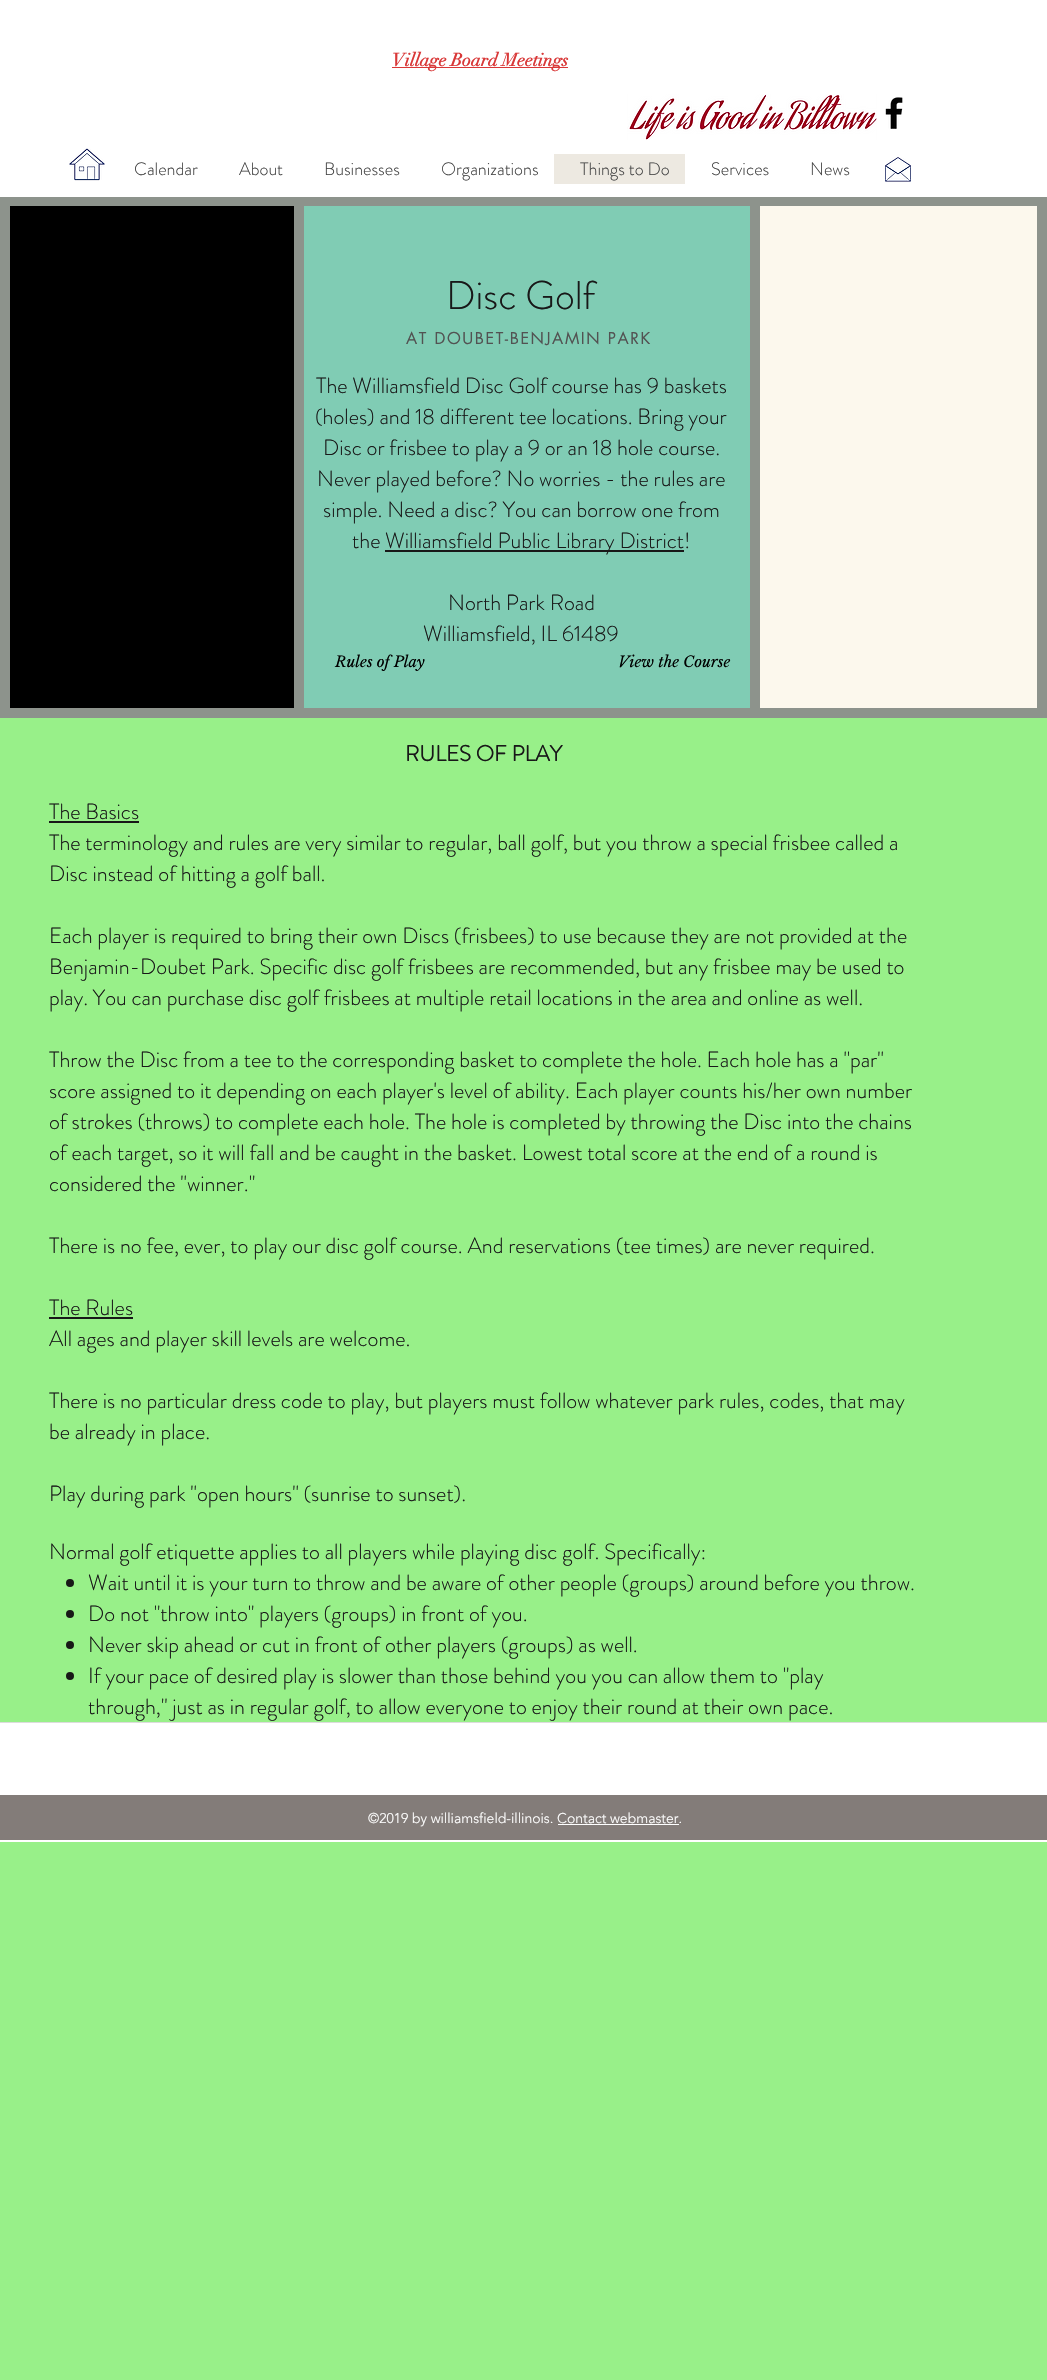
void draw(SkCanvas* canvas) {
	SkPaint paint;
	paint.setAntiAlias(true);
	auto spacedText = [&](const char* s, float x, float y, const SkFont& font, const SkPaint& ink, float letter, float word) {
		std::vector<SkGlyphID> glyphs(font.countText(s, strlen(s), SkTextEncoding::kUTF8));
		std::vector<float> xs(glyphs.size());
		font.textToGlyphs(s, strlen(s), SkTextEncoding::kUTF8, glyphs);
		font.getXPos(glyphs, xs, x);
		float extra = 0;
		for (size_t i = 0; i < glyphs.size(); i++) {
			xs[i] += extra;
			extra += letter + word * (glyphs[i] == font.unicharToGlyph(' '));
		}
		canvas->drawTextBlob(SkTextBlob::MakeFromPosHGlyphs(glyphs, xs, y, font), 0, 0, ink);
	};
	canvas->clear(0xff98f089);
	paint.setColor(0xffffffff);
	canvas->drawRect(SkRect::MakeXYWH(0, 0, 1047, 197), paint);
	paint.setColor(0xffd93838);
	canvas->drawRect(SkRect::MakeXYWH(392, 67, 176, 1), paint);
	SkFont f1(fontMgr->matchFamilyStyle("didot", SkFontStyle::Bold()), 18);
	f1.setSubpixel(true);
	canvas->drawString("Village Board Meetings", 392, 66, f1, paint);
	canvas->drawImageRect(SkImages::DeferredFromEncodedData(SkData::MakeFromFileName("img1.png")), SkRect::MakeXYWH(627, 94, 250, 46), SkSamplingOptions());
	canvas->drawImageRect(SkImages::DeferredFromEncodedData(SkData::MakeFromFileName("img2.png")), SkRect::MakeXYWH(885, 97, 18, 32), SkSamplingOptions());
	canvas->drawImageRect(SkImages::DeferredFromEncodedData(SkData::MakeFromFileName("img3.png")), SkRect::MakeXYWH(69, 148, 36, 33), SkSamplingOptions());
	SkFont f2(fontMgr->matchFamilyStyle("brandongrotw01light", SkFontStyle(300, SkFontStyle::kNormal_Width, SkFontStyle::kUpright_Slant)), 18);
	f2.setSubpixel(true);
	paint.setColor(0xff444444);
	canvas->drawString("Calendar", 134, 175, f2, paint);
	canvas->drawString("About", 239, 175, f2, paint);
	canvas->drawString("Businesses", 324, 175, f2, paint);
	canvas->drawString("Organizations", 441, 175, f2, paint);
	paint.setColor(0xffede9e1);
	canvas->drawRect(SkRect::MakeXYWH(554, 154, 131, 30), paint);
	paint.setColor(0xff444444);
	canvas->drawString("Things to Do", 580, 175, f2, paint);
	canvas->drawString("Services", 711, 175, f2, paint);
	canvas->drawString("News", 810, 175, f2, paint);
	canvas->drawImageRect(SkImages::DeferredFromEncodedData(SkData::MakeFromFileName("img4.png")), SkRect::MakeXYWH(885, 157, 26, 25), SkSamplingOptions());
	paint.setColor(0xff8d938c);
	canvas->drawRect(SkRect::MakeXYWH(0, 197, 1047, 521), paint);
	paint.setColor(0xff000000);
	canvas->drawRect(SkRect::MakeXYWH(10, 206, 284, 502), paint);
	paint.setColor(0xff80ccb4);
	canvas->drawRect(SkRect::MakeXYWH(304, 206, 446, 502), paint);
	SkFont f3(fontMgr->matchFamilyStyle("brandongrotw01light", SkFontStyle(300, SkFontStyle::kNormal_Width, SkFontStyle::kUpright_Slant)), 40);
	f3.setSubpixel(true);
	paint.setColor(0xff181818);
	canvas->drawString("Disc Golf", 446, 309, f3, paint);
	SkFont f4(fontMgr->matchFamilyStyle("futura", SkFontStyle::Normal()), 16);
	f4.setSubpixel(true);
	paint.setColor(0xff525252);
	spacedText("AT DOUBET-BENJAMIN PARK", 406, 344, f4, paint, 1.6, 0);
	SkFont f5(fontMgr->matchFamilyStyle("brandongrotw01light", SkFontStyle(300, SkFontStyle::kNormal_Width, SkFontStyle::kUpright_Slant)), 22);
	f5.setSubpixel(true);
	paint.setColor(0xff181818);
	canvas->drawString("The Williamsfield Disc Golf course has 9 baskets", 316, 393, f5, paint);
	canvas->drawString("(holes) and 18 different tee locations. Bring your", 315, 424, f5, paint);
	canvas->drawString("Disc or frisbee to play a 9 or an 18 hole course.", 323, 455, f5, paint);
	canvas->drawString("Never played before? No worries - the rules are", 317, 486, f5, paint);
	canvas->drawString("simple. Need a disc? You can borrow one from", 323, 517, f5, paint);
	canvas->drawString("the", 352, 548, f5, paint);
	canvas->drawRect(SkRect::MakeXYWH(385, 550, 299, 2), paint);
	canvas->drawString("Williamsfield Public Library District!", 385, 548, f5, paint);
	canvas->drawString("North Park Road", 448, 610, f5, paint);
	canvas->drawString("Williamsfield, IL 61489", 423, 641, f5, paint);
	SkFont f6(fontMgr->matchFamilyStyle("Libre Baskerville", SkFontStyle::Italic()), 15);
	f6.setSubpixel(true);
	paint.setColor(0xff000000);
	canvas->drawString("Rules of Play", 335, 667, f6, paint);
	canvas->drawString("View the Course", 618, 667, f6, paint);
	paint.setColor(0xfffcf8ed);
	canvas->drawRect(SkRect::MakeXYWH(760, 206, 277, 502), paint);
	SkFont f7(fontMgr->matchFamilyStyle("brandongrotw01light", SkFontStyle::Bold()), 22);
	f7.setSubpixel(true);
	paint.setColor(0xff181818);
	canvas->drawString("RULES OF PLAY", 405, 761, f7, paint);
	canvas->drawString("The Basics", 49, 819, f5, paint);
	canvas->drawRect(SkRect::MakeXYWH(49, 821, 90, 2), paint);
	canvas->drawString("The terminology and rules are very similar to regular, ball golf, but you throw a special frisbee called a", 49, 850, f5, paint);
	canvas->drawString("Disc instead of hitting a golf ball.", 49, 881, f5, paint);
	canvas->drawString("Each player is required to bring their own Discs (frisbees) to use because they are not provided at the", 49, 943, f5, paint);
	canvas->drawString("Benjamin-Doubet Park. Specific disc golf frisbees are recommended, but any frisbee may be used to", 49, 974, f5, paint);
	canvas->drawString("play. You can purchase disc golf frisbees at multiple retail locations in the area and online as well.", 49, 1005, f5, paint);
	canvas->drawString("Throw the Disc from a tee to the corresponding basket to complete the hole. Each hole has a \"par\"", 49, 1067, f5, paint);
	canvas->drawString("score assigned to it depending on each player's level of ability. Each player counts his/her own number", 49, 1098, f5, paint);
	canvas->drawString("of strokes (throws) to complete each hole. The hole is completed by throwing the Disc into the chains", 49, 1129, f5, paint);
	canvas->drawString("of each target, so it will fall and be caught in the basket. Lowest total score at the end of a round is", 49, 1160, f5, paint);
	canvas->drawString("considered the \"winner.\"", 49, 1191, f5, paint);
	canvas->drawString("There is no fee, ever, to play our disc golf course. And reservations (tee times) are never required.", 49, 1253, f5, paint);
	canvas->drawString("The Rules", 49, 1315, f5, paint);
	canvas->drawRect(SkRect::MakeXYWH(49, 1317, 84, 2), paint);
	canvas->drawString("All ages and player skill levels are welcome.", 49, 1346, f5, paint);
	canvas->drawString("There is no particular dress code to play, but players must follow whatever park rules, codes, that may", 49, 1408, f5, paint);
	canvas->drawString("be already in place.", 49, 1439, f5, paint);
	canvas->drawString("Play during park \"open hours\" (sunrise to sunset).", 49, 1501, f5, paint);
	canvas->drawString("Normal golf etiquette applies to all players while playing disc golf. Specifically:", 49, 1559, f5, paint);
	canvas->drawCircle(70, 1583, 4, paint);
	canvas->drawString("Wait until it is your turn to throw and be aware of other people (groups) around before you throw.", 88, 1590, f5, paint);
	canvas->drawCircle(70, 1614, 4, paint);
	canvas->drawString("Do not \"throw into\" players (groups) in front of you.", 88, 1621, f5, paint);
	canvas->drawCircle(70, 1645, 4, paint);
	canvas->drawString("Never skip ahead or cut in front of other players (groups) as well.", 88, 1652, f5, paint);
	canvas->drawCircle(70, 1676, 4, paint);
	canvas->drawString("If your pace of desired play is slower than those behind you you can allow them to \"play", 88, 1683, f5, paint);
	canvas->drawString("through,\" just as in regular golf, to allow everyone to enjoy their round at their own pace.", 88, 1714, f5, paint);
	paint.setColor(0xffffffff);
	canvas->drawRect(SkRect::MakeXYWH(0, 1723, 1047, 119), paint);
	paint.setColor(0xffdcdcdc);
	canvas->drawRect(SkRect::MakeXYWH(0, 1722, 1047, 1), paint);
	paint.setColor(0xff837c79);
	canvas->drawRect(SkRect::MakeXYWH(0, 1795, 1047, 45), paint);
	SkFont f8(fontMgr->matchFamilyStyle("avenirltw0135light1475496", SkFontStyle(300, SkFontStyle::kNormal_Width, SkFontStyle::kUpright_Slant)), 14);
	f8.setSubpixel(true);
	paint.setColor(0xffffffff);
	canvas->drawString("©2019 by williamsfield-illinois. Contact webmaster.", 368, 1823, f8, paint);
	canvas->drawRect(SkRect::MakeXYWH(558, 1824, 121, 1), paint);
}
